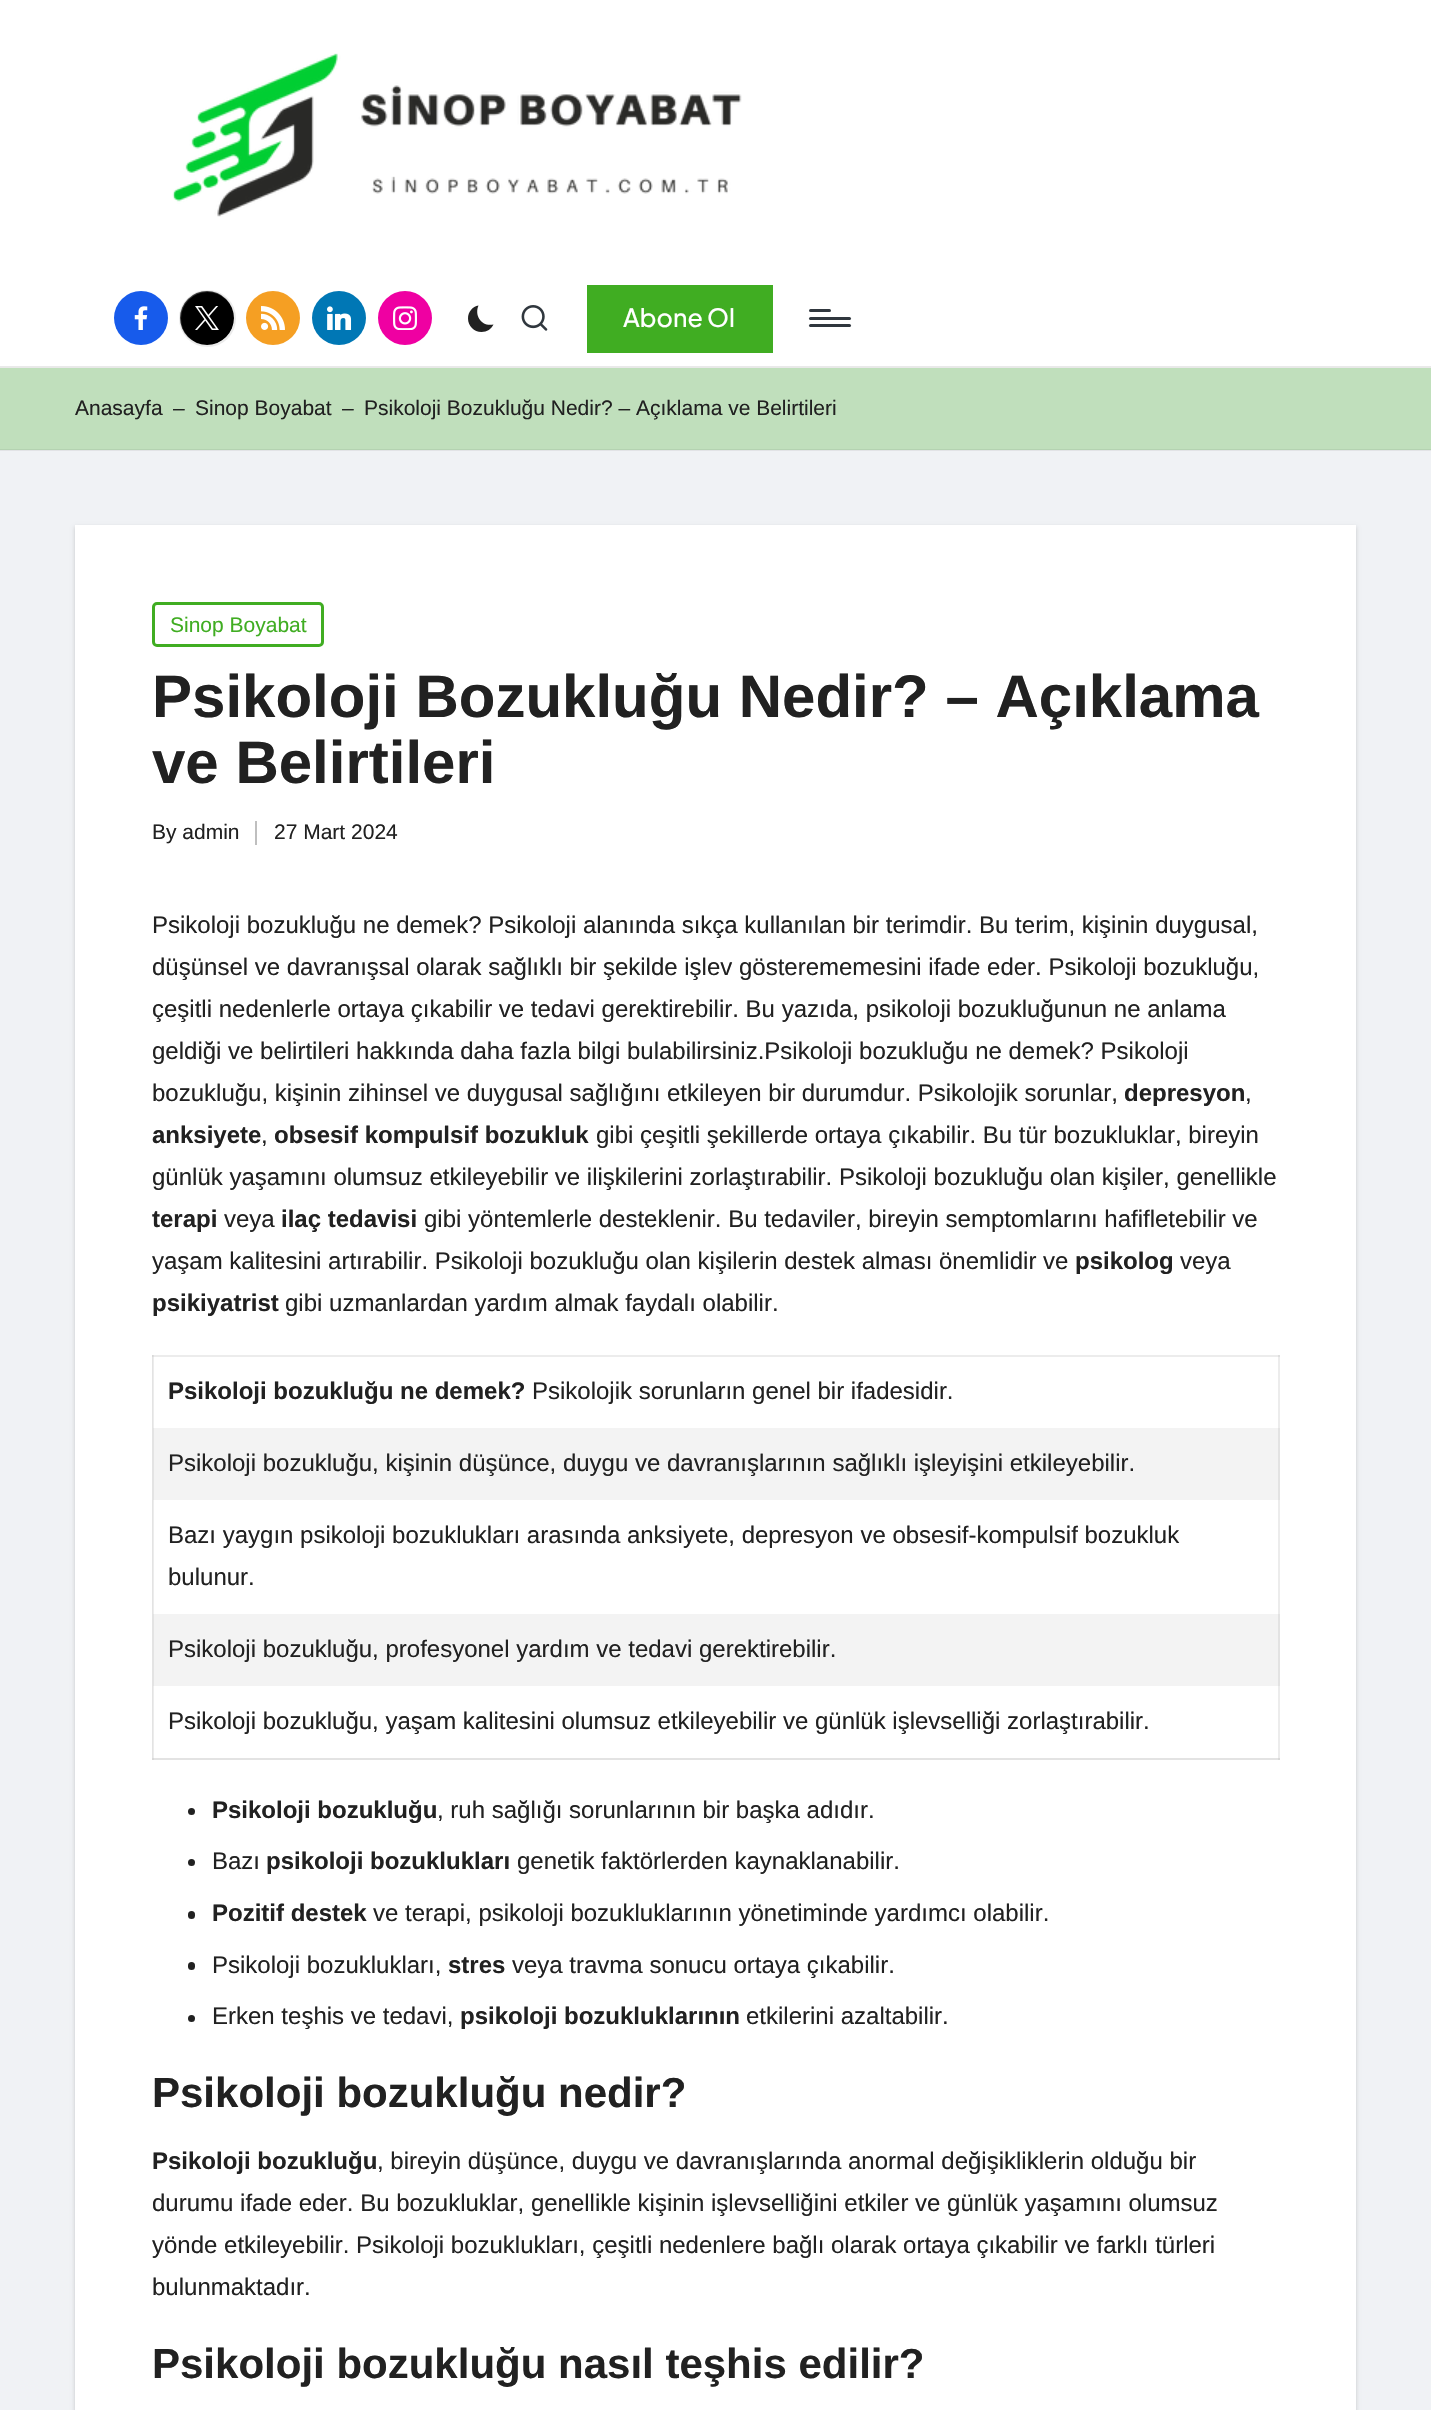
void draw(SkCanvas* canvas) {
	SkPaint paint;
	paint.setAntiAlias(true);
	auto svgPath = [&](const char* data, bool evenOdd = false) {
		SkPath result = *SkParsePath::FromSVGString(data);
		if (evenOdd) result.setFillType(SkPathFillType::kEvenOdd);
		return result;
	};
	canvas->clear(0xfff0f2f5);
	paint.setColor(0xffe2e3e6);
	canvas->drawRect(SkRect::MakeXYWH(0, 450, 1431, 1), paint);
	paint.setColor(0xffffffff);
	canvas->drawRect(SkRect::MakeXYWH(0, 0, 1431, 366), paint);
	paint.setColor(0xffe9e9e9);
	canvas->drawRect(SkRect::MakeXYWH(0, 366, 1431, 2), paint);
	canvas->drawImageRect(SkImages::DeferredFromEncodedData(SkData::MakeFromFileName("img1.png")), SkRect::MakeXYWH(172, 53, 570, 164), SkSamplingOptions());
	paint.setColor(0xff175beb);
	canvas->drawCircle(141, 318, 27, paint);
	canvas->drawImageRect(SkImages::DeferredFromEncodedData(SkData::MakeFromFileName("img2.png")), SkRect::MakeXYWH(134, 306, 14, 24), SkSamplingOptions());
	paint.setColor(0xff000000);
	canvas->drawCircle(207, 318, 27, paint);
	paint.setStroke(true);
	paint.setStrokeWidth(2);
	paint.setColor(0x4dbebebe);
	canvas->drawCircle(207.5, 318.5, 27.5, paint);
	canvas->drawImageRect(SkImages::DeferredFromEncodedData(SkData::MakeFromFileName("img3.png")), SkRect::MakeXYWH(195, 306, 24, 24), SkSamplingOptions());
	paint.setStroke(false);
	paint.setColor(0xfff59f23);
	canvas->drawCircle(273, 318, 27, paint);
	canvas->drawImageRect(SkImages::DeferredFromEncodedData(SkData::MakeFromFileName("img4.png")), SkRect::MakeXYWH(261, 306, 24, 24), SkSamplingOptions());
	paint.setColor(0xff0077b5);
	canvas->drawCircle(339, 318, 27, paint);
	canvas->drawImageRect(SkImages::DeferredFromEncodedData(SkData::MakeFromFileName("img5.png")), SkRect::MakeXYWH(327, 306, 25, 24), SkSamplingOptions());
	paint.setColor(0xffef00a2);
	canvas->drawCircle(405, 318, 27, paint);
	canvas->drawImageRect(SkImages::DeferredFromEncodedData(SkData::MakeFromFileName("img6.png")), SkRect::MakeXYWH(393, 306, 24, 24), SkSamplingOptions());
	paint.setColor(0xff212121);
	canvas->drawPath(svgPath("M493.5 324.5C482 327 474 316 478.5 305.5C472.5 306.5 468 312 468 318.5C468 326 474 332 481.5 332C487 332 491.5 329 493.5 324.5Z"), paint);
	canvas->drawImageRect(SkImages::DeferredFromEncodedData(SkData::MakeFromFileName("img7.png")), SkRect::MakeXYWH(521, 305, 27, 26), SkSamplingOptions());
	paint.setColor(0xff40ad22);
	canvas->drawRect(SkRect::MakeXYWH(587, 285, 186, 68), paint);
	SkFont f1(fontMgr->matchFamilyStyle("Plus Jakarta Sans", SkFontStyle(500, SkFontStyle::kNormal_Width, SkFontStyle::kUpright_Slant)), 25);
	f1.setSubpixel(true);
	paint.setColor(0xffffffff);
	canvas->drawString("Abone Ol", 623, 327, f1, paint);
	paint.setColor(0xff30373e);
	canvas->drawRoundRect(SkRect::MakeXYWH(809, 317, 42, 3), 1.5, 1.5, paint);
	canvas->drawRoundRect(SkRect::MakeXYWH(809, 309, 22, 3), 1.5, 1.5, paint);
	canvas->drawRoundRect(SkRect::MakeXYWH(809, 324, 42, 3), 1.5, 1.5, paint);
	paint.setColor(0xffc0dfbc);
	canvas->drawRect(SkRect::MakeXYWH(0, 368, 1431, 81), paint);
	paint.setColor(0xffb4d2b1);
	canvas->drawRect(SkRect::MakeXYWH(0, 449, 1431, 1), paint);
	SkFont f2(fontMgr->matchFamilyStyle("Liberation Sans", SkFontStyle::Normal()), 21);
	f2.setSubpixel(true);
	paint.setColor(0xff212121);
	canvas->drawString("Anasayfa", 75, 415, f2, paint);
	canvas->drawString("–", 173, 415, f2, paint);
	canvas->drawString("Sinop Boyabat", 195, 415, f2, paint);
	canvas->drawString("–", 342, 415, f2, paint);
	canvas->drawString("Psikoloji Bozukluğu Nedir? – Açıklama ve Belirtileri", 364, 415, f2, paint);
	paint.setColor(0x2e000000);
	paint.setMaskFilter(SkMaskFilter::MakeBlur(kNormal_SkBlurStyle, 2));
	canvas->drawRect(SkRect::MakeXYWH(75, 527, 1281, 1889), paint);
	paint.setMaskFilter(nullptr);
	paint.setColor(0xffffffff);
	canvas->drawRect(SkRect::MakeXYWH(75, 525, 1281, 1885), paint);
	paint.setStroke(true);
	paint.setStrokeWidth(3);
	paint.setColor(0xff40ad22);
	canvas->drawRoundRect(SkRect::MakeXYWH(153.5, 603.5, 169, 42), 3.5, 3.5, paint);
	paint.setStroke(false);
	canvas->drawString("Sinop Boyabat", 170, 632, f2, paint);
	SkFont f3(fontMgr->matchFamilyStyle("Liberation Sans", SkFontStyle::Bold()), 60);
	f3.setSubpixel(true);
	paint.setColor(0xff212121);
	canvas->drawString("Psikoloji Bozukluğu Nedir? – Açıklama", 152, 717, f3, paint);
	canvas->drawString("ve Belirtileri", 152, 783, f3, paint);
	canvas->drawString("By admin", 152, 839, f2, paint);
	paint.setColor(0xffbfbfbf);
	canvas->drawRect(SkRect::MakeXYWH(255, 821, 2, 24), paint);
	paint.setColor(0xff212121);
	canvas->drawString("27 Mart 2024", 274, 839, f2, paint);
	SkFont f4(fontMgr->matchFamilyStyle("Liberation Sans", SkFontStyle::Normal()), 24);
	f4.setSubpixel(true);
	canvas->drawString("Psikoloji bozukluğu ne demek? Psikoloji alanında sıkça kullanılan bir terimdir. Bu terim, kişinin duygusal,", 152, 933, f4, paint);
	canvas->drawString("düşünsel ve davranışsal olarak sağlıklı bir şekilde işlev gösterememesini ifade eder. Psikoloji bozukluğu,", 152, 975, f4, paint);
	canvas->drawString("çeşitli nedenlerle ortaya çıkabilir ve tedavi gerektirebilir. Bu yazıda, psikoloji bozukluğunun ne anlama", 152, 1017, f4, paint);
	canvas->drawString("geldiği ve belirtileri hakkında daha fazla bilgi bulabilirsiniz.Psikoloji bozukluğu ne demek? Psikoloji", 152, 1059, f4, paint);
	canvas->drawString("bozukluğu, kişinin zihinsel ve duygusal sağlığını etkileyen bir durumdur. Psikolojik sorunlar,", 152, 1101, f4, paint);
	SkFont f5(fontMgr->matchFamilyStyle("Liberation Sans", SkFontStyle::Bold()), 24);
	f5.setSubpixel(true);
	canvas->drawString("depresyon", 1124, 1101, f5, paint);
	canvas->drawString(",", 1245, 1101, f4, paint);
	canvas->drawString("anksiyete", 152, 1143, f5, paint);
	canvas->drawString(",", 261, 1143, f4, paint);
	canvas->drawString("obsesif kompulsif bozukluk", 274, 1143, f5, paint);
	canvas->drawString("gibi çeşitli şekillerde ortaya çıkabilir. Bu tür bozukluklar, bireyin", 596, 1143, f4, paint);
	canvas->drawString("günlük yaşamını olumsuz etkileyebilir ve ilişkilerini zorlaştırabilir. Psikoloji bozukluğu olan kişiler, genellikle", 152, 1185, f4, paint);
	canvas->drawString("terapi", 152, 1227, f5, paint);
	canvas->drawString("veya", 224, 1227, f4, paint);
	canvas->drawString("ilaç tedavisi", 281, 1227, f5, paint);
	canvas->drawString("gibi yöntemlerle desteklenir. Bu tedaviler, bireyin semptomlarını hafifletebilir ve", 424, 1227, f4, paint);
	canvas->drawString("yaşam kalitesini artırabilir. Psikoloji bozukluğu olan kişilerin destek alması önemlidir ve", 152, 1269, f4, paint);
	canvas->drawString("psikolog", 1075, 1269, f5, paint);
	canvas->drawString("veya", 1180, 1269, f4, paint);
	canvas->drawString("psikiyatrist", 152, 1311, f5, paint);
	canvas->drawString("gibi uzmanlardan yardım almak faydalı olabilir.", 285, 1311, f4, paint);
	paint.setColor(0xfff3f3f3);
	canvas->drawRect(SkRect::MakeXYWH(154, 1428, 1124, 258), paint);
	paint.setColor(0xffe3e3e3);
	canvas->drawRect(SkRect::MakeXYWH(152, 1355, 2, 405), paint);
	canvas->drawRect(SkRect::MakeXYWH(152, 1758, 1128, 2), paint);
	paint.setColor(0xffd8d8d8);
	canvas->drawRect(SkRect::MakeXYWH(152, 1758, 2, 2), paint);
	paint.setColor(0xffe3e3e3);
	canvas->drawRect(SkRect::MakeXYWH(1278, 1428, 2, 258), paint);
	paint.setColor(0xffd8d8d8);
	canvas->drawRect(SkRect::MakeXYWH(1278, 1758, 2, 2), paint);
	canvas->drawRect(SkRect::MakeXYWH(152, 1355, 2, 2), paint);
	paint.setColor(0xffececec);
	canvas->drawRect(SkRect::MakeXYWH(153, 1355, 1, 73), paint);
	canvas->drawRect(SkRect::MakeXYWH(1278, 1355, 2, 73), paint);
	canvas->drawRect(SkRect::MakeXYWH(153, 1355, 1127, 2), paint);
	paint.setColor(0xffdedede);
	canvas->drawRect(SkRect::MakeXYWH(153, 1355, 1, 2), paint);
	canvas->drawRect(SkRect::MakeXYWH(1278, 1355, 2, 2), paint);
	paint.setColor(0xff212121);
	canvas->drawString("Psikoloji bozukluğu ne demek?", 168, 1399, f5, paint);
	canvas->drawString("Psikolojik sorunların genel bir ifadesidir.", 532, 1399, f4, paint);
	canvas->drawString("Psikoloji bozukluğu, kişinin düşünce, duygu ve davranışlarının sağlıklı işleyişini etkileyebilir.", 168, 1471, f4, paint);
	paint.setColor(0xffffffff);
	canvas->drawRect(SkRect::MakeXYWH(154, 1500, 1124, 114), paint);
	paint.setColor(0xffececec);
	canvas->drawRect(SkRect::MakeXYWH(153, 1500, 1, 114), paint);
	canvas->drawRect(SkRect::MakeXYWH(1278, 1500, 2, 114), paint);
	paint.setColor(0xff212121);
	canvas->drawString("Bazı yaygın psikoloji bozuklukları arasında anksiyete, depresyon ve obsesif-kompulsif bozukluk", 168, 1543, f4, paint);
	canvas->drawString("bulunur.", 168, 1585, f4, paint);
	canvas->drawString("Psikoloji bozukluğu, profesyonel yardım ve tedavi gerektirebilir.", 168, 1657, f4, paint);
	paint.setColor(0xffececec);
	canvas->drawRect(SkRect::MakeXYWH(153, 1686, 1, 72), paint);
	canvas->drawRect(SkRect::MakeXYWH(1278, 1686, 2, 72), paint);
	paint.setColor(0xff212121);
	canvas->drawString("Psikoloji bozukluğu, yaşam kalitesini olumsuz etkileyebilir ve günlük işlevselliği zorlaştırabilir.", 168, 1729, f4, paint);
	canvas->drawCircle(191.5, 1811.5, 3.5, paint);
	canvas->drawString("Psikoloji bozukluğu", 212, 1818, f5, paint);
	canvas->drawString(", ruh sağlığı sorunlarının bir başka adıdır.", 437, 1818, f4, paint);
	canvas->drawCircle(191.5, 1862.5, 3.5, paint);
	canvas->drawString("Bazı", 212, 1869, f4, paint);
	canvas->drawString("psikoloji bozuklukları", 266, 1869, f5, paint);
	canvas->drawString("genetik faktörlerden kaynaklanabilir.", 517, 1869, f4, paint);
	canvas->drawRoundRect(SkRect::MakeXYWH(188, 1911, 7, 8), 3.5, 3.5, paint);
	canvas->drawString("Pozitif destek", 212, 1921, f5, paint);
	canvas->drawString("ve terapi, psikoloji bozukluklarının yönetiminde yardımcı olabilir.", 373, 1921, f4, paint);
	canvas->drawRoundRect(SkRect::MakeXYWH(188, 1962, 7, 8), 3.5, 3.5, paint);
	canvas->drawString("Psikoloji bozuklukları,", 212, 1973, f4, paint);
	canvas->drawString("stres", 448, 1973, f5, paint);
	canvas->drawString("veya travma sonucu ortaya çıkabilir.", 512, 1973, f4, paint);
	canvas->drawCircle(191.5, 2018.5, 3.5, paint);
	canvas->drawString("Erken teşhis ve tedavi,", 212, 2024, f4, paint);
	canvas->drawString("psikoloji bozukluklarının", 460, 2024, f5, paint);
	canvas->drawString("etkilerini azaltabilir.", 746, 2024, f4, paint);
	SkFont f6(fontMgr->matchFamilyStyle("Liberation Sans", SkFontStyle::Bold()), 42);
	f6.setSubpixel(true);
	canvas->drawString("Psikoloji bozukluğu nedir?", 152, 2107, f6, paint);
	canvas->drawString("Psikoloji bozukluğu", 152, 2169, f5, paint);
	canvas->drawString(", bireyin düşünce, duygu ve davranışlarında anormal değişikliklerin olduğu bir", 377, 2169, f4, paint);
	canvas->drawString("durumu ifade eder. Bu bozukluklar, genellikle kişinin işlevselliğini etkiler ve günlük yaşamını olumsuz", 152, 2211, f4, paint);
	canvas->drawString("yönde etkileyebilir. Psikoloji bozuklukları, çeşitli nedenlere bağlı olarak ortaya çıkabilir ve farklı türleri", 152, 2253, f4, paint);
	canvas->drawString("bulunmaktadır.", 152, 2295, f4, paint);
	canvas->drawString("Psikoloji bozukluğu nasıl teşhis edilir?", 152, 2378, f6, paint);
}
